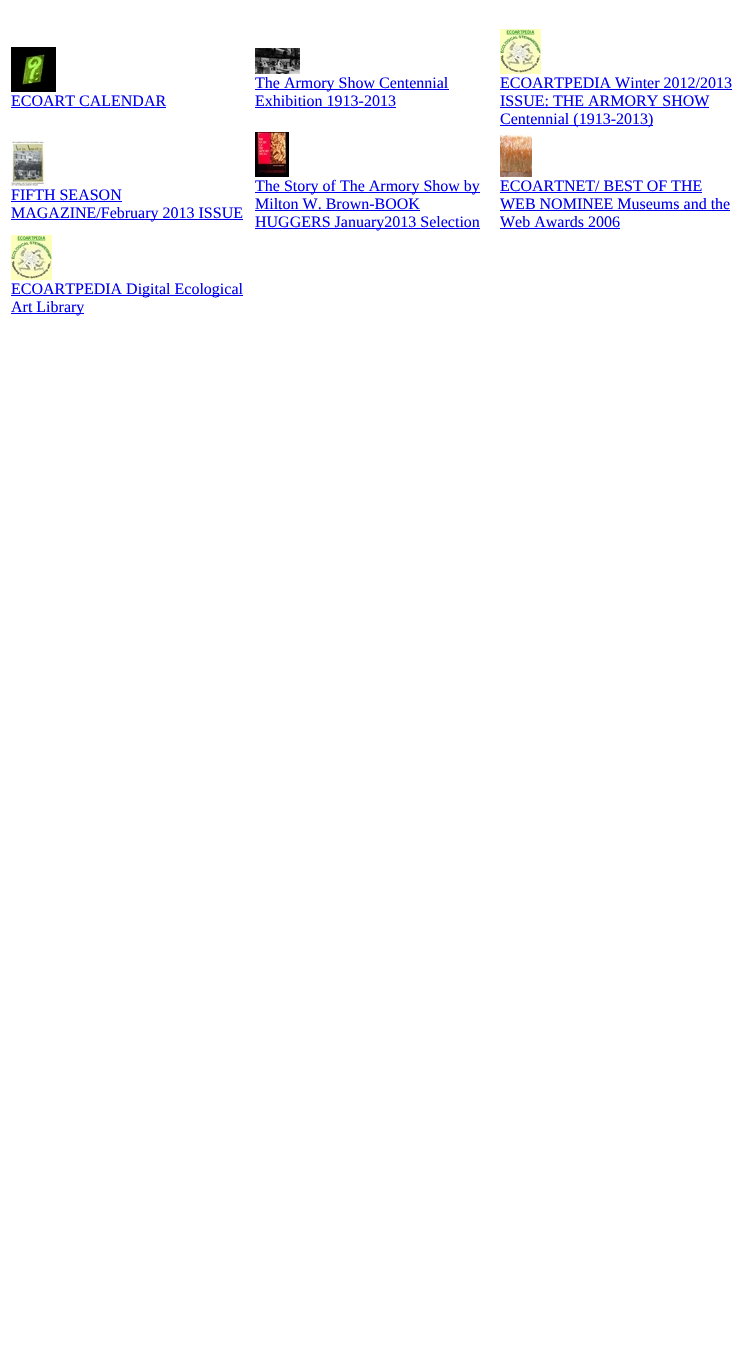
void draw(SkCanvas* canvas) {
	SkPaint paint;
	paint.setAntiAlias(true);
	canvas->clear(0xffffffff);
	canvas->drawImageRect(SkImages::DeferredFromEncodedData(SkData::MakeFromFileName("img1.png")), SkRect::MakeXYWH(11, 47, 45, 45), SkSamplingOptions());
	SkFont f1(fontMgr->matchFamilyStyle("Liberation Serif", SkFontStyle::Normal()), 16);
	f1.setSubpixel(true);
	paint.setColor(0xff0000ee);
	canvas->drawString("ECOART CALENDAR", 11, 106, f1, paint);
	canvas->drawRect(SkRect::MakeXYWH(11, 107, 155, 1), paint);
	canvas->drawImageRect(SkImages::DeferredFromEncodedData(SkData::MakeFromFileName("img2.png")), SkRect::MakeXYWH(255, 48, 45, 26), SkSamplingOptions());
	canvas->drawRect(SkRect::MakeXYWH(255, 89, 194, 1), paint);
	canvas->drawString("The Armory Show Centennial", 255, 88, f1, paint);
	canvas->drawString("Exhibition 1913-2013", 255, 106, f1, paint);
	canvas->drawRect(SkRect::MakeXYWH(255, 107, 141, 1), paint);
	canvas->drawImageRect(SkImages::DeferredFromEncodedData(SkData::MakeFromFileName("img3.png")), SkRect::MakeXYWH(500, 29, 41, 45), SkSamplingOptions());
	canvas->drawString("ECOARTPEDIA Winter 2012/2013", 500, 88, f1, paint);
	canvas->drawRect(SkRect::MakeXYWH(500, 89, 232, 1), paint);
	canvas->drawString("ISSUE: THE ARMORY SHOW", 500, 106, f1, paint);
	canvas->drawRect(SkRect::MakeXYWH(500, 107, 209, 1), paint);
	canvas->drawRect(SkRect::MakeXYWH(500, 125, 153, 1), paint);
	canvas->drawString("Centennial (1913-2013)", 500, 124, f1, paint);
	canvas->drawImageRect(SkImages::DeferredFromEncodedData(SkData::MakeFromFileName("img4.png")), SkRect::MakeXYWH(11, 141, 34, 45), SkSamplingOptions());
	canvas->drawString("FIFTH SEASON", 11, 200, f1, paint);
	canvas->drawRect(SkRect::MakeXYWH(11, 201, 111, 1), paint);
	canvas->drawRect(SkRect::MakeXYWH(11, 219, 232, 1), paint);
	canvas->drawString("MAGAZINE/February 2013 ISSUE", 11, 218, f1, paint);
	canvas->drawImageRect(SkImages::DeferredFromEncodedData(SkData::MakeFromFileName("img5.png")), SkRect::MakeXYWH(255, 132, 34, 45), SkSamplingOptions());
	canvas->drawRect(SkRect::MakeXYWH(255, 192, 225, 1), paint);
	canvas->drawString("The Story of The Armory Show by", 255, 191, f1, paint);
	canvas->drawString("Milton W. Brown-BOOK", 255, 209, f1, paint);
	canvas->drawRect(SkRect::MakeXYWH(255, 210, 165, 1), paint);
	canvas->drawRect(SkRect::MakeXYWH(255, 228, 225, 1), paint);
	canvas->drawString("HUGGERS January2013 Selection", 255, 227, f1, paint);
	canvas->drawImageRect(SkImages::DeferredFromEncodedData(SkData::MakeFromFileName("img6.png")), SkRect::MakeXYWH(500, 133, 32, 44), SkSamplingOptions());
	canvas->drawString("ECOARTNET/ BEST OF THE", 500, 191, f1, paint);
	canvas->drawRect(SkRect::MakeXYWH(500, 192, 202, 1), paint);
	canvas->drawString("WEB NOMINEE Museums and the", 500, 209, f1, paint);
	canvas->drawRect(SkRect::MakeXYWH(500, 210, 230, 1), paint);
	canvas->drawString("Web Awards 2006", 500, 227, f1, paint);
	canvas->drawRect(SkRect::MakeXYWH(500, 228, 120, 1), paint);
	canvas->drawImageRect(SkImages::DeferredFromEncodedData(SkData::MakeFromFileName("img3.png")), SkRect::MakeXYWH(11, 235, 41, 45), SkSamplingOptions());
	canvas->drawRect(SkRect::MakeXYWH(11, 295, 232, 1), paint);
	canvas->drawString("ECOARTPEDIA Digital Ecological", 11, 294, f1, paint);
	canvas->drawRect(SkRect::MakeXYWH(11, 313, 73, 1), paint);
	canvas->drawString("Art Library", 11, 312, f1, paint);
}
